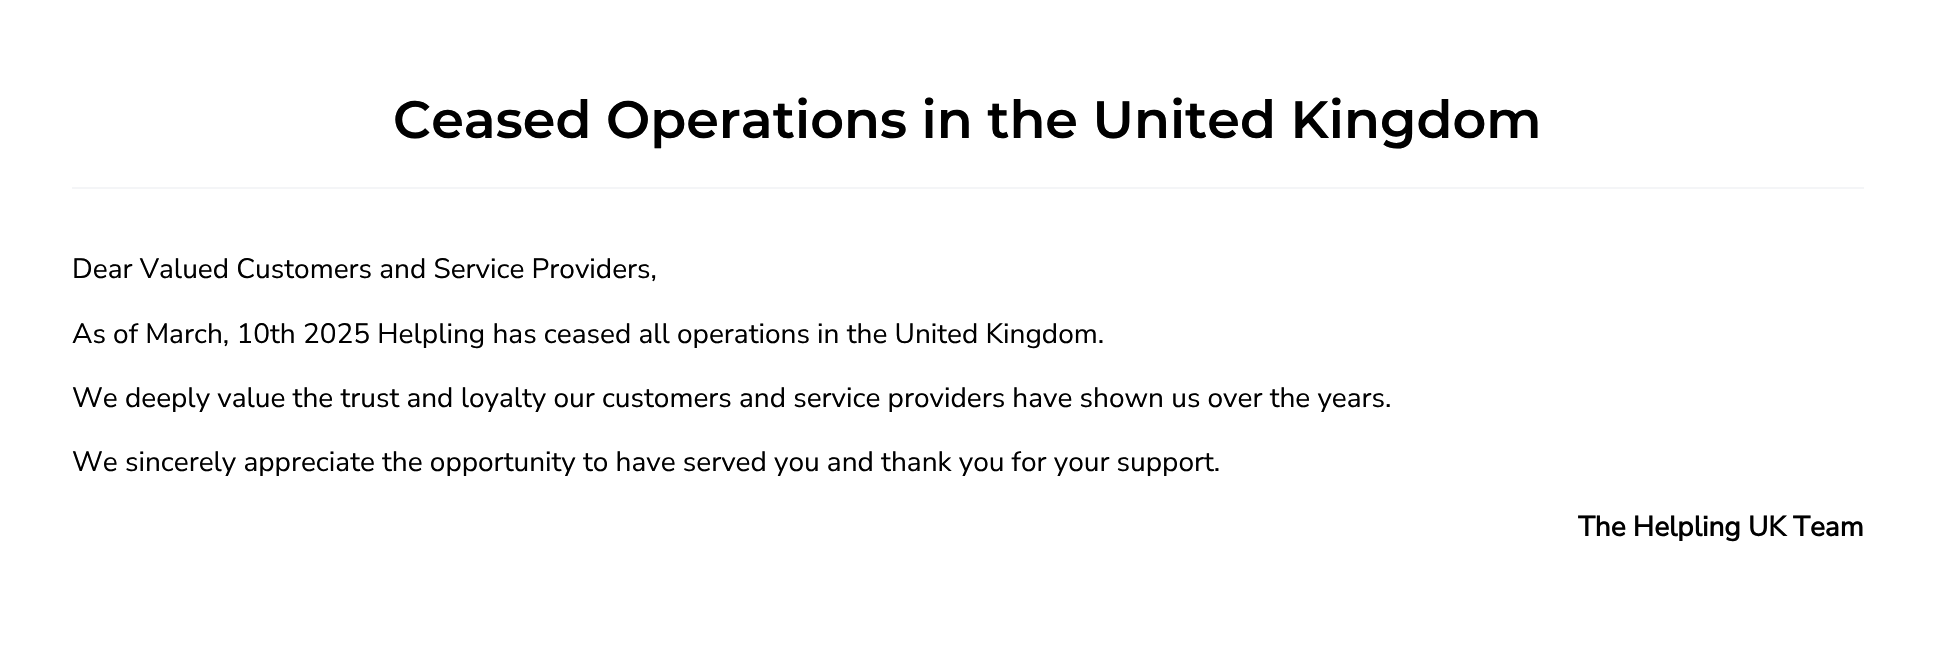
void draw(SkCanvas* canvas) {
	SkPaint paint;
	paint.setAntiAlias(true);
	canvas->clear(0xffffffff);
	SkFont f1(fontMgr->matchFamilyStyle("Montserrat", SkFontStyle(100, SkFontStyle::kNormal_Width, SkFontStyle::kUpright_Slant)), 52.5);
	f1.setSubpixel(true);
	paint.setColor(0xff000000);
	canvas->drawString("Ceased Operations in the United Kingdom", 393, 138, f1, paint);
	paint.setColor(0xfff4f5f7);
	canvas->drawRect(SkRect::MakeXYWH(72, 187, 1792, 2), paint);
	SkFont f2(fontMgr->matchFamilyStyle("Nunito Sans", SkFontStyle(200, SkFontStyle::kNormal_Width, SkFontStyle::kUpright_Slant)), 28);
	f2.setSubpixel(true);
	paint.setColor(0xff000000);
	canvas->drawString("Dear Valued Customers and Service Providers,", 72, 278, f2, paint);
	canvas->drawString("As of March, 10th 2025 Helpling has ceased all operations in the United Kingdom.", 72, 343, f2, paint);
	canvas->drawString("We deeply value the trust and loyalty our customers and service providers have shown us over the years.", 72, 407, f2, paint);
	canvas->drawString("We sincerely appreciate the opportunity to have served you and thank you for your support.", 72, 471, f2, paint);
	SkFont f3(fontMgr->matchFamilyStyle("Nunito Sans", SkFontStyle::Bold()), 28);
	f3.setSubpixel(true);
	canvas->drawString("The Helpling UK Team", 1578, 536, f3, paint);
}
